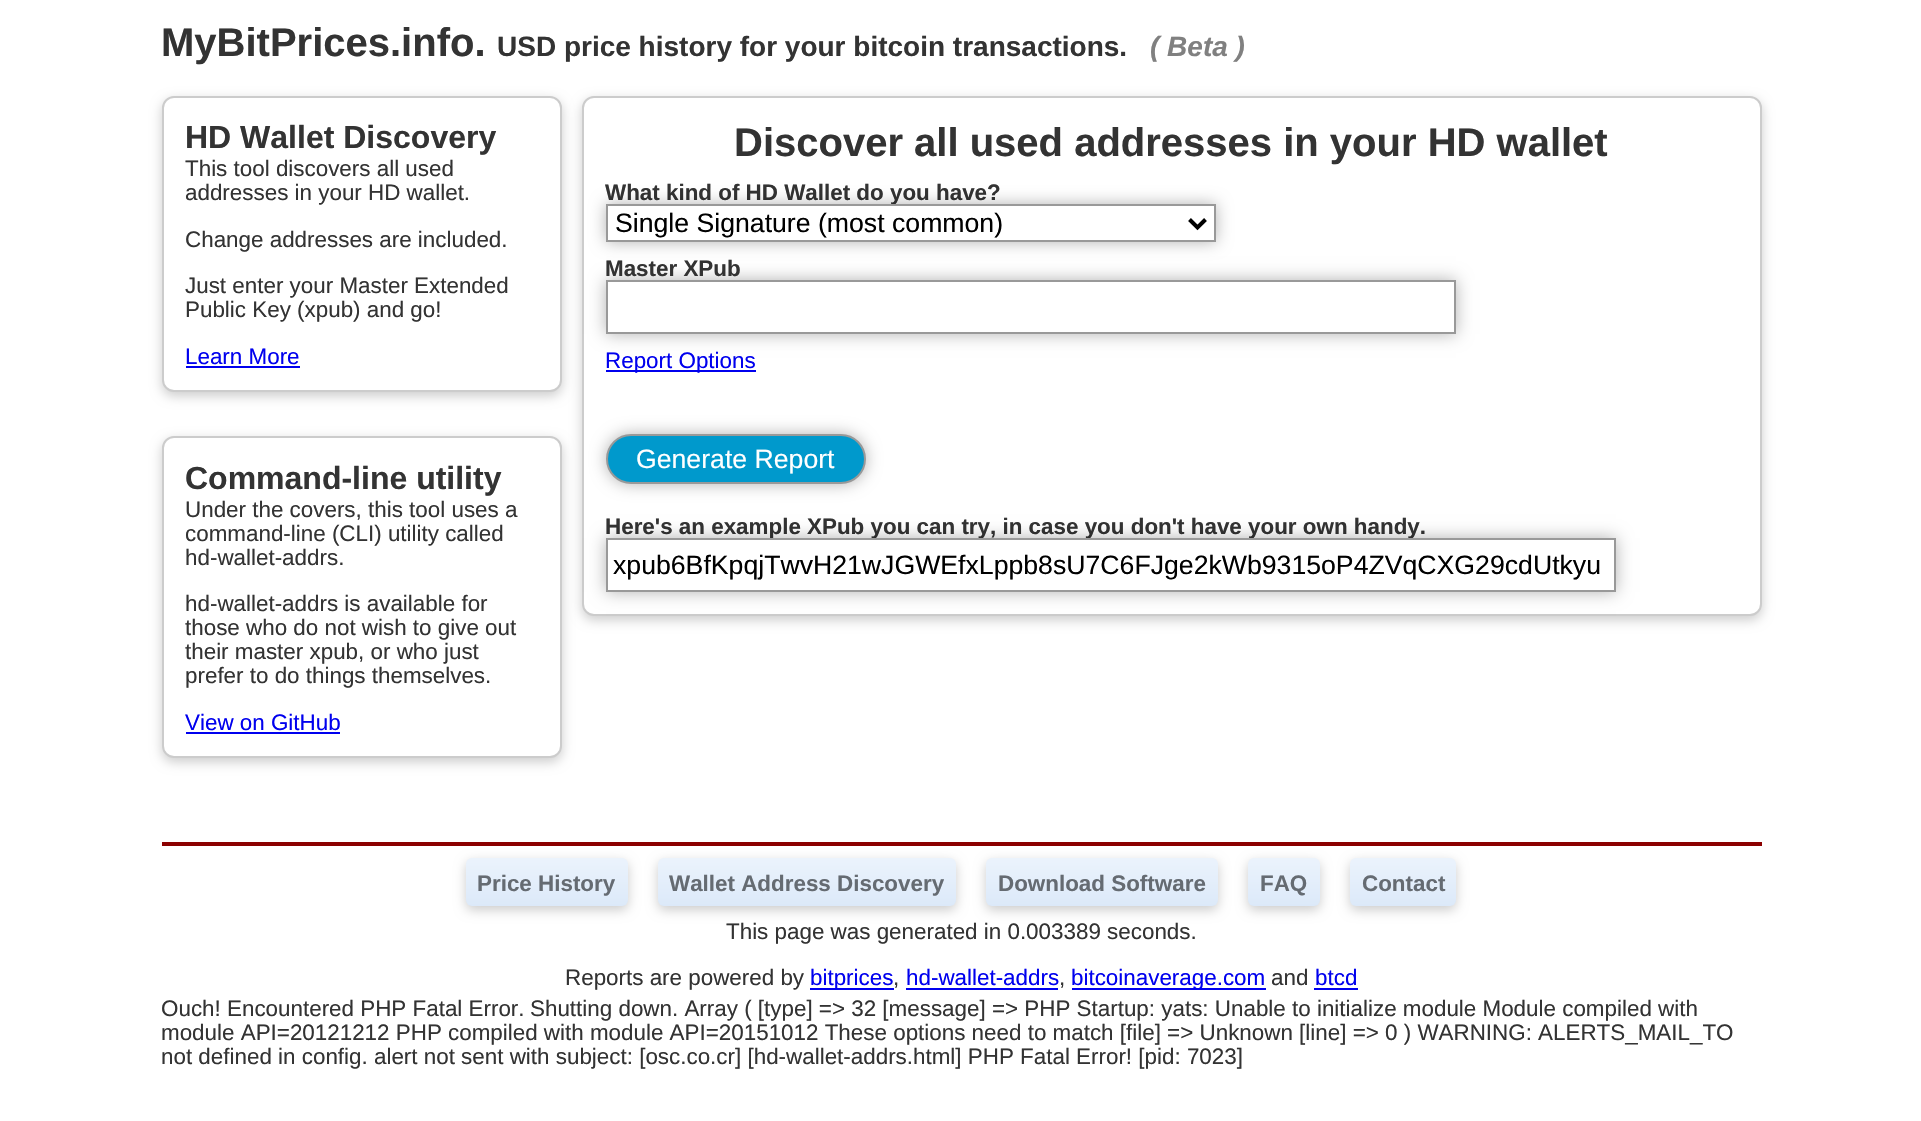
void draw(SkCanvas* canvas) {
	SkPaint paint;
	paint.setAntiAlias(true);
	auto svgPath = [&](const char* data, bool evenOdd = false) {
		SkPath result = *SkParsePath::FromSVGString(data);
		if (evenOdd) result.setFillType(SkPathFillType::kEvenOdd);
		return result;
	};
	canvas->clear(0xffffffff);
	SkFont f1(fontMgr->matchFamilyStyle("Liberation Sans", SkFontStyle::Bold()), 40);
	f1.setSubpixel(true);
	paint.setColor(0xff333333);
	canvas->drawString("MyBitPrices.info.", 161, 56, f1, paint);
	SkFont f2(fontMgr->matchFamilyStyle("Liberation Sans", SkFontStyle::Bold()), 28);
	f2.setSubpixel(true);
	canvas->drawString("USD price history for your bitcoin transactions.", 497, 56, f2, paint);
	SkFont f3(fontMgr->matchFamilyStyle("Liberation Sans", SkFontStyle::BoldItalic()), 28);
	f3.setSubpixel(true);
	paint.setColor(0xff808080);
	canvas->drawString("( Beta )", 1150, 56, f3, paint);
	paint.setColor(0xffcccccc);
	paint.setMaskFilter(SkMaskFilter::MakeBlur(kNormal_SkBlurStyle, 6));
	canvas->drawRoundRect(SkRect::MakeXYWH(162, 100, 400, 296), 12, 12, paint);
	paint.setMaskFilter(nullptr);
	paint.setColor(0xffffffff);
	canvas->drawRoundRect(SkRect::MakeXYWH(163, 97, 398, 294), 11, 11, paint);
	paint.setStroke(true);
	paint.setStrokeWidth(2);
	paint.setColor(0xffcccccc);
	canvas->drawRoundRect(SkRect::MakeXYWH(163, 97, 398, 294), 11, 11, paint);
	SkFont f4(fontMgr->matchFamilyStyle("Liberation Sans", SkFontStyle::Bold()), 32);
	f4.setSubpixel(true);
	paint.setStroke(false);
	paint.setColor(0xff333333);
	canvas->drawString("HD Wallet Discovery", 185, 148, f4, paint);
	SkFont f5(fontMgr->matchFamilyStyle("Liberation Sans", SkFontStyle::Normal()), 22.4);
	f5.setSubpixel(true);
	canvas->drawString("This tool discovers all used", 185, 176, f5, paint);
	canvas->drawString("addresses in your HD wallet.", 185, 200, f5, paint);
	canvas->drawString("Change addresses are included.", 185, 247, f5, paint);
	canvas->drawString("Just enter your Master Extended", 185, 293, f5, paint);
	canvas->drawString("Public Key (xpub) and go!", 185, 317, f5, paint);
	paint.setColor(0xff0000ee);
	canvas->drawString("Learn More", 185, 364, f5, paint);
	canvas->drawRect(SkRect::MakeXYWH(186, 366, 114, 2), paint);
	paint.setColor(0xffcccccc);
	paint.setMaskFilter(SkMaskFilter::MakeBlur(kNormal_SkBlurStyle, 6));
	canvas->drawRoundRect(SkRect::MakeXYWH(162, 440, 400, 322), 12, 12, paint);
	paint.setMaskFilter(nullptr);
	paint.setColor(0xffffffff);
	canvas->drawRoundRect(SkRect::MakeXYWH(163, 437, 398, 320), 11, 11, paint);
	paint.setStroke(true);
	paint.setColor(0xffcccccc);
	canvas->drawRoundRect(SkRect::MakeXYWH(163, 437, 398, 320), 11, 11, paint);
	paint.setStroke(false);
	paint.setColor(0xff333333);
	canvas->drawString("Command-line utility", 185, 489, f4, paint);
	canvas->drawString("Under the covers, this tool uses a", 185, 517, f5, paint);
	canvas->drawString("command-line (CLI) utility called", 185, 541, f5, paint);
	canvas->drawString("hd-wallet-addrs.", 185, 565, f5, paint);
	canvas->drawString("hd-wallet-addrs is available for", 185, 611, f5, paint);
	canvas->drawString("those who do not wish to give out", 185, 635, f5, paint);
	canvas->drawString("their master xpub, or who just", 185, 659, f5, paint);
	canvas->drawString("prefer to do things themselves.", 185, 683, f5, paint);
	paint.setColor(0xff0000ee);
	canvas->drawString("View on GitHub", 185, 730, f5, paint);
	canvas->drawRect(SkRect::MakeXYWH(186, 732, 154, 2), paint);
	paint.setColor(0xffcccccc);
	paint.setMaskFilter(SkMaskFilter::MakeBlur(kNormal_SkBlurStyle, 6));
	canvas->drawRoundRect(SkRect::MakeXYWH(582, 100, 1180, 520), 12, 12, paint);
	paint.setMaskFilter(nullptr);
	paint.setColor(0xffffffff);
	canvas->drawRoundRect(SkRect::MakeXYWH(583, 97, 1178, 518), 11, 11, paint);
	paint.setStroke(true);
	paint.setColor(0xffcccccc);
	canvas->drawRoundRect(SkRect::MakeXYWH(583, 97, 1178, 518), 11, 11, paint);
	paint.setStroke(false);
	paint.setColor(0xff333333);
	canvas->drawString("Discover all used addresses in your HD wallet", 734, 156, f1, paint);
	SkFont f6(fontMgr->matchFamilyStyle("Liberation Sans", SkFontStyle::Bold()), 22.4);
	f6.setSubpixel(true);
	canvas->drawString("What kind of HD Wallet do you have?", 605, 200, f6, paint);
	paint.setColor(0x4d000000);
	paint.setMaskFilter(SkMaskFilter::MakeBlur(kNormal_SkBlurStyle, 8));
	canvas->drawRect(SkRect::MakeXYWH(606, 204, 610, 38), paint);
	paint.setMaskFilter(nullptr);
	paint.setColor(0xffffffff);
	canvas->drawRect(SkRect::MakeXYWH(607, 205, 608, 36), paint);
	paint.setStroke(true);
	paint.setColor(0xff999999);
	canvas->drawRect(SkRect::MakeXYWH(607, 205, 608, 36), paint);
	paint.setStrokeWidth(4);
	paint.setColor(0xff000000);
	canvas->drawPath(svgPath("M1189.5 219.5L1197.5 227.5L1205.5 219.5"), paint);
	SkFont f7(fontMgr->matchFamilyStyle("Liberation Sans", SkFontStyle::Normal()), 26.65);
	f7.setSubpixel(true);
	paint.setStroke(false);
	canvas->drawString("Single Signature (most common)", 615, 232, f7, paint);
	canvas->save();
	canvas->clipPath(svgPath("M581 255H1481V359H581ZM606 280H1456V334H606Z", true), true);
	paint.setColor(0x4d000000);
	paint.setMaskFilter(SkMaskFilter::MakeBlur(kNormal_SkBlurStyle, 8));
	canvas->drawRect(SkRect::MakeXYWH(606, 280, 850, 54), paint);
	paint.setMaskFilter(nullptr);
	canvas->restore();
	paint.setStroke(true);
	paint.setStrokeWidth(2);
	paint.setColor(0xff999999);
	canvas->drawRect(SkRect::MakeXYWH(607, 281, 848, 52), paint);
	paint.setStroke(false);
	paint.setColor(0xff333333);
	canvas->drawString("Master XPub", 605, 276, f6, paint);
	paint.setColor(0xff0000ee);
	canvas->drawRect(SkRect::MakeXYWH(606, 370, 150, 2), paint);
	canvas->drawString("Report Options", 605, 368, f5, paint);
	paint.setColor(0x4d000000);
	paint.setMaskFilter(SkMaskFilter::MakeBlur(kNormal_SkBlurStyle, 8));
	canvas->drawRoundRect(SkRect::MakeXYWH(606, 434, 260, 50), 25, 25, paint);
	paint.setMaskFilter(nullptr);
	paint.setColor(0xff0099cc);
	canvas->drawRoundRect(SkRect::MakeXYWH(607, 435, 258, 48), 24, 24, paint);
	paint.setStroke(true);
	paint.setColor(0xff999999);
	canvas->drawRoundRect(SkRect::MakeXYWH(607, 435, 258, 48), 24, 24, paint);
	paint.setStroke(false);
	paint.setColor(0xffffffff);
	canvas->drawString("Generate Report", 636, 468, f7, paint);
	paint.setColor(0xff333333);
	canvas->drawString("Here's an example XPub you can try, in case you don't have your own handy.", 605, 534, f6, paint);
	paint.setColor(0x4d000000);
	paint.setMaskFilter(SkMaskFilter::MakeBlur(kNormal_SkBlurStyle, 8));
	canvas->drawRect(SkRect::MakeXYWH(606, 538, 1010, 54), paint);
	paint.setMaskFilter(nullptr);
	paint.setColor(0xffffffff);
	canvas->drawRect(SkRect::MakeXYWH(607, 539, 1008, 52), paint);
	paint.setStroke(true);
	paint.setColor(0xff999999);
	canvas->drawRect(SkRect::MakeXYWH(607, 539, 1008, 52), paint);
	paint.setStroke(false);
	paint.setColor(0xff000000);
	canvas->drawString("xpub6BfKpqjTwvH21wJGWEfxLppb8sU7C6FJge2kWb9315oP4ZVqCXG29cdUtkyu", 613, 574, f7, paint);
	paint.setColor(0xff8b0000);
	canvas->drawRect(SkRect::MakeXYWH(162, 842, 1600, 4), paint);
	paint.setColor(0xffcccccc);
	paint.setMaskFilter(SkMaskFilter::MakeBlur(kNormal_SkBlurStyle, 6));
	canvas->drawRoundRect(SkRect::MakeXYWH(466, 862, 162, 48), 6, 6, paint);
	paint.setMaskFilter(nullptr);
	{
		const SkColor colors[] = {0xffebf3fc, 0xffdce9f9};
		const float stops[] = {0, 1};
		const SkPoint ends[] = {{547, 858}, {547, 906}};
		paint.setShader(SkGradientShader::MakeLinear(ends, colors, stops, 2, SkTileMode::kClamp));
		paint.setAlpha(255);
	}
	canvas->drawRoundRect(SkRect::MakeXYWH(466, 858, 162, 48), 6, 6, paint);
	paint.setShader(nullptr);
	paint.setColor(0xff656b72);
	canvas->drawString("Price History", 477, 891, f6, paint);
	paint.setColor(0xffcccccc);
	paint.setMaskFilter(SkMaskFilter::MakeBlur(kNormal_SkBlurStyle, 6));
	canvas->drawRoundRect(SkRect::MakeXYWH(658, 862, 298, 48), 6, 6, paint);
	paint.setMaskFilter(nullptr);
	{
		const SkColor colors[] = {0xffebf3fc, 0xffdce9f9};
		const float stops[] = {0, 1};
		const SkPoint ends[] = {{807, 858}, {807, 906}};
		paint.setShader(SkGradientShader::MakeLinear(ends, colors, stops, 2, SkTileMode::kClamp));
		paint.setAlpha(255);
	}
	canvas->drawRoundRect(SkRect::MakeXYWH(658, 858, 298, 48), 6, 6, paint);
	paint.setShader(nullptr);
	paint.setColor(0xff656b72);
	canvas->drawString("Wallet Address Discovery", 669, 891, f6, paint);
	paint.setColor(0xffcccccc);
	paint.setMaskFilter(SkMaskFilter::MakeBlur(kNormal_SkBlurStyle, 6));
	canvas->drawRoundRect(SkRect::MakeXYWH(986, 862, 232, 48), 6, 6, paint);
	paint.setMaskFilter(nullptr);
	{
		const SkColor colors[] = {0xffebf3fc, 0xffdce9f9};
		const float stops[] = {0, 1};
		const SkPoint ends[] = {{1102, 858}, {1102, 906}};
		paint.setShader(SkGradientShader::MakeLinear(ends, colors, stops, 2, SkTileMode::kClamp));
		paint.setAlpha(255);
	}
	canvas->drawRoundRect(SkRect::MakeXYWH(986, 858, 232, 48), 6, 6, paint);
	paint.setShader(nullptr);
	paint.setColor(0xff656b72);
	canvas->drawString("Download Software", 998, 891, f6, paint);
	paint.setColor(0xffcccccc);
	paint.setMaskFilter(SkMaskFilter::MakeBlur(kNormal_SkBlurStyle, 6));
	canvas->drawRoundRect(SkRect::MakeXYWH(1248, 862, 72, 48), 6, 6, paint);
	paint.setMaskFilter(nullptr);
	{
		const SkColor colors[] = {0xffebf3fc, 0xffdce9f9};
		const float stops[] = {0, 1};
		const SkPoint ends[] = {{1284, 858}, {1284, 906}};
		paint.setShader(SkGradientShader::MakeLinear(ends, colors, stops, 2, SkTileMode::kClamp));
		paint.setAlpha(255);
	}
	canvas->drawRoundRect(SkRect::MakeXYWH(1248, 858, 72, 48), 6, 6, paint);
	paint.setShader(nullptr);
	paint.setColor(0xff656b72);
	canvas->drawString("FAQ", 1260, 891, f6, paint);
	paint.setColor(0xffcccccc);
	paint.setMaskFilter(SkMaskFilter::MakeBlur(kNormal_SkBlurStyle, 6));
	canvas->drawRoundRect(SkRect::MakeXYWH(1350, 862, 106, 48), 6, 6, paint);
	paint.setMaskFilter(nullptr);
	{
		const SkColor colors[] = {0xffebf3fc, 0xffdce9f9};
		const float stops[] = {0, 1};
		const SkPoint ends[] = {{1403, 858}, {1403, 906}};
		paint.setShader(SkGradientShader::MakeLinear(ends, colors, stops, 2, SkTileMode::kClamp));
		paint.setAlpha(255);
	}
	canvas->drawRoundRect(SkRect::MakeXYWH(1350, 858, 106, 48), 6, 6, paint);
	paint.setShader(nullptr);
	paint.setColor(0xff656b72);
	canvas->drawString("Contact", 1362, 891, f6, paint);
	paint.setColor(0xff333333);
	canvas->drawString("This page was generated in 0.003389 seconds.", 726, 939, f5, paint);
	canvas->drawString("Reports are powered by", 565, 985, f5, paint);
	paint.setColor(0xff0000ee);
	canvas->drawRect(SkRect::MakeXYWH(810, 988, 84, 2), paint);
	canvas->drawString("bitprices", 810, 985, f5, paint);
	paint.setColor(0xff333333);
	canvas->drawString(",", 893, 985, f5, paint);
	paint.setColor(0xff0000ee);
	canvas->drawString("hd-wallet-addrs", 906, 985, f5, paint);
	canvas->drawRect(SkRect::MakeXYWH(906, 988, 152, 2), paint);
	paint.setColor(0xff333333);
	canvas->drawString(",", 1059, 985, f5, paint);
	paint.setColor(0xff0000ee);
	canvas->drawRect(SkRect::MakeXYWH(1072, 988, 194, 2), paint);
	canvas->drawString("bitcoinaverage.com", 1071, 985, f5, paint);
	paint.setColor(0xff333333);
	canvas->drawString("and", 1271, 985, f5, paint);
	paint.setColor(0xff0000ee);
	canvas->drawString("btcd", 1315, 985, f5, paint);
	canvas->drawRect(SkRect::MakeXYWH(1314, 988, 44, 2), paint);
	paint.setColor(0xff333333);
	canvas->drawString("Ouch! Encountered PHP Fatal Error.", 161, 1016, f5, paint);
	canvas->drawString("Shutting down. Array ( [type] => 32 [message] => PHP Startup: yats: Unable to initialize module Module compiled with", 530, 1016, f5, paint);
	canvas->drawString("module API=20121212 PHP", 161, 1040, f5, paint);
	canvas->drawString("compiled with module API=20151012 These options need to match [file] => Unknown [line] => 0 ) WARNING: ALERTS_MAIL_TO", 448, 1040, f5, paint);
	canvas->drawString("not defined in config. alert not sent with subject: [osc.co.cr] [hd-wallet-addrs.html] PHP Fatal Error! [pid: 7023]", 161, 1064, f5, paint);
}
